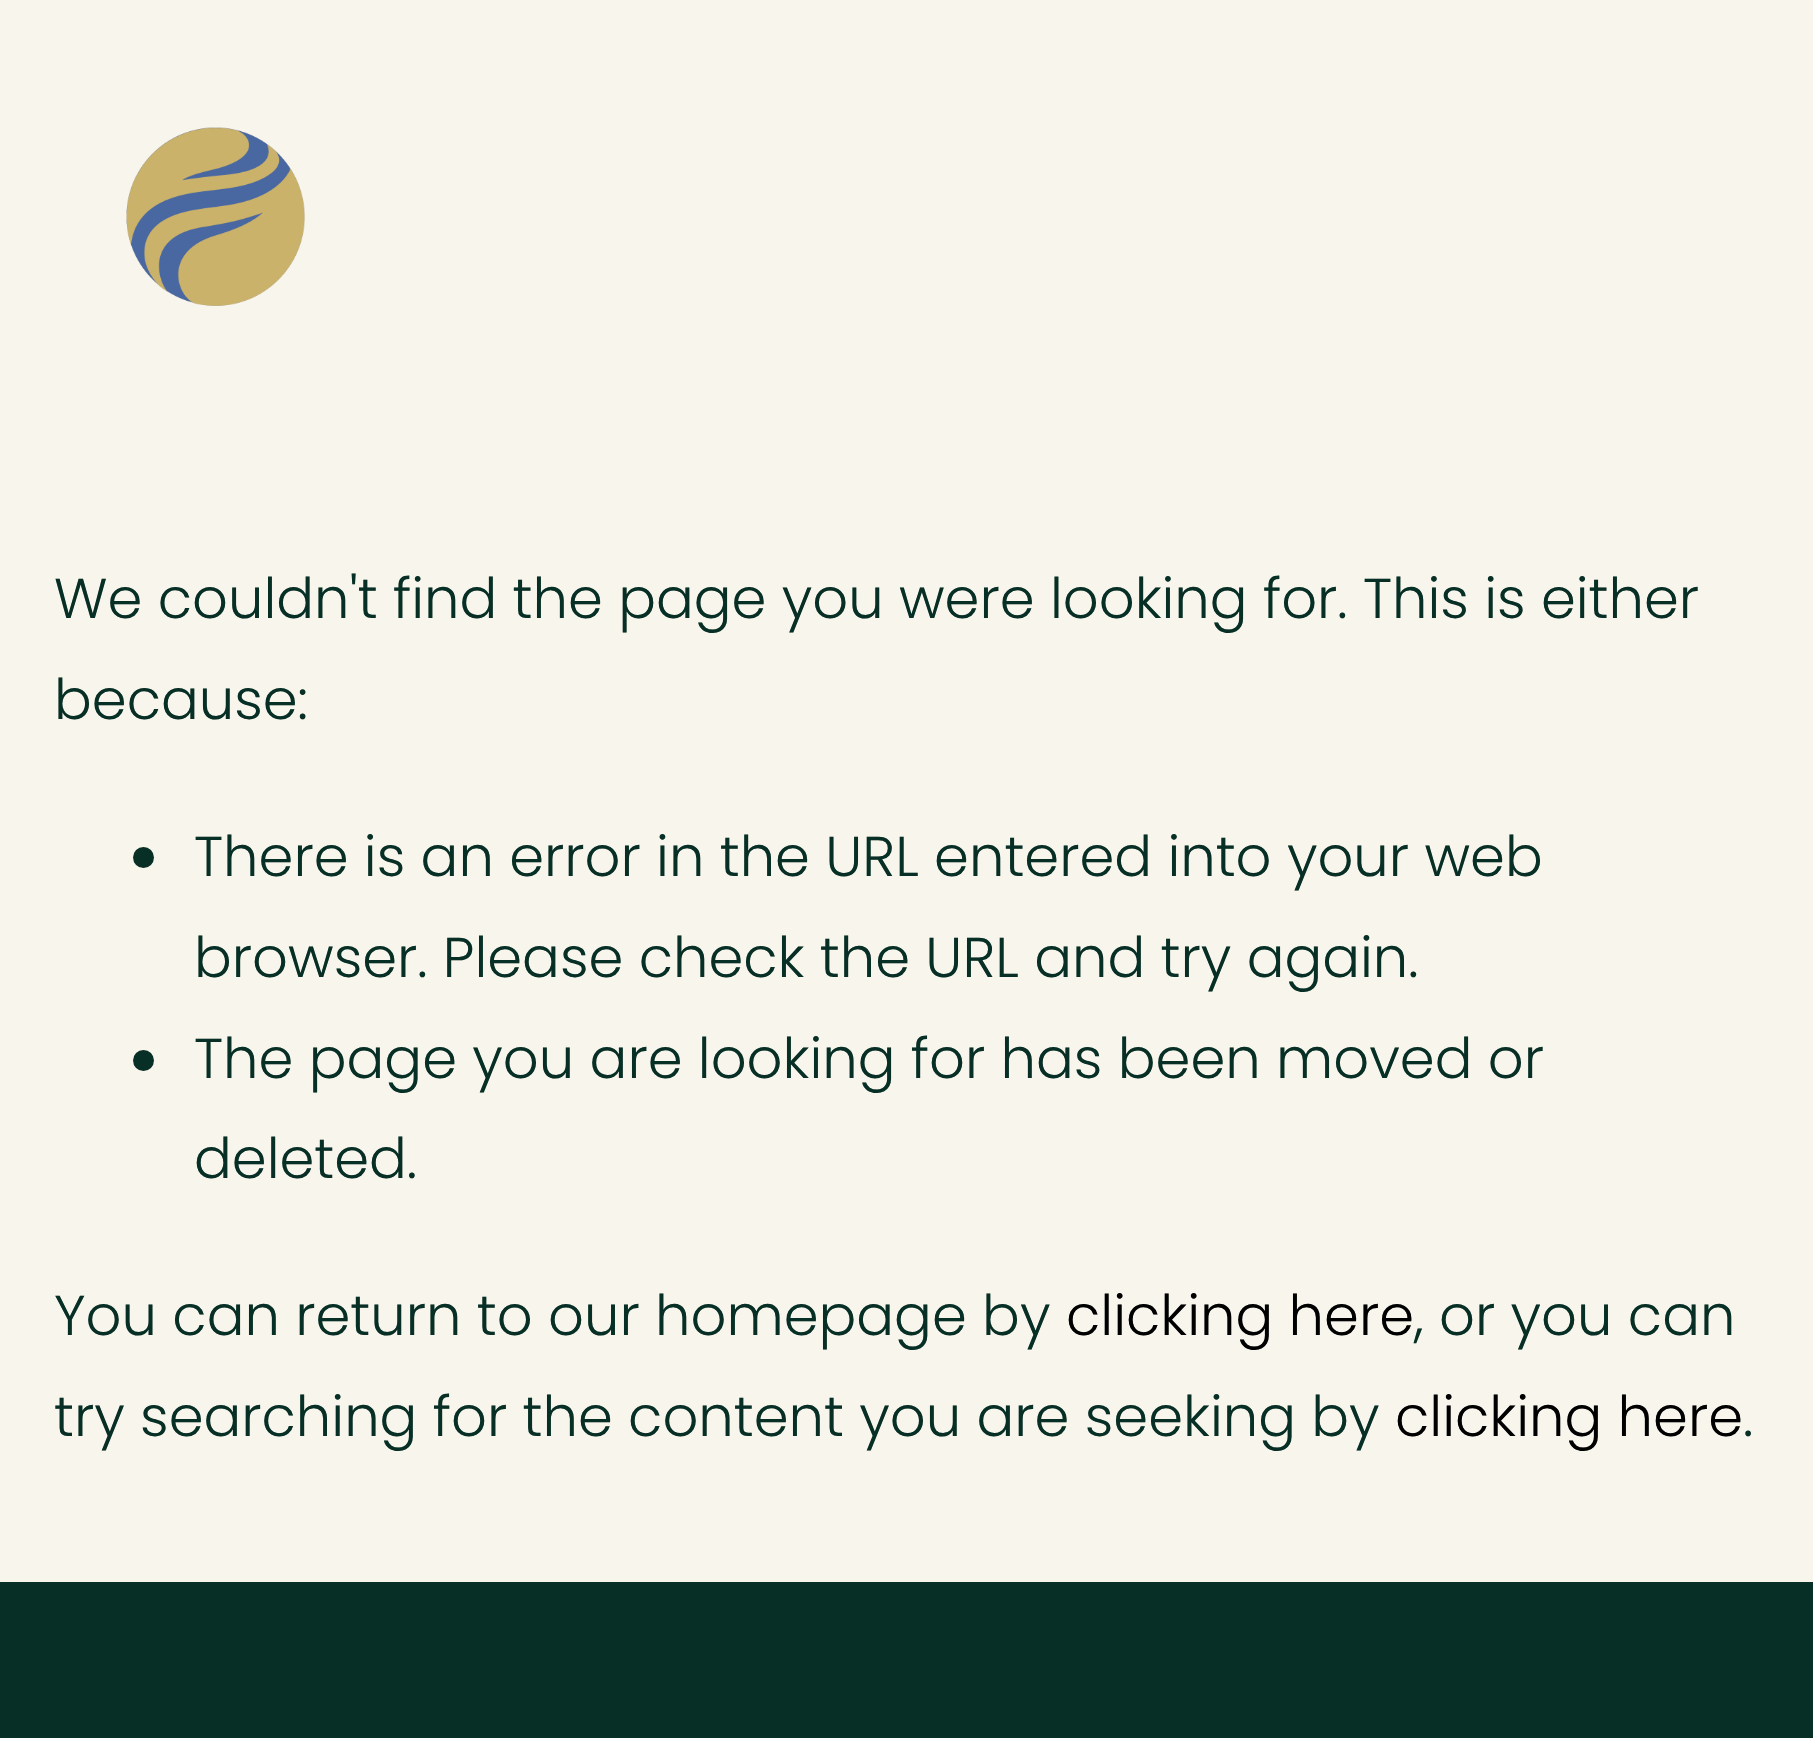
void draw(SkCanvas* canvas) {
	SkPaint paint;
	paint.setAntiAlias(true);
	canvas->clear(0xfff8f5ec);
	canvas->drawImageRect(SkImages::DeferredFromEncodedData(SkData::MakeFromFileName("img1.png")), SkRect::MakeXYWH(126, 127, 179, 179), SkSamplingOptions());
	SkFont f1(fontMgr->matchFamilyStyle("Poppins", SkFontStyle(300, SkFontStyle::kNormal_Width, SkFontStyle::kUpright_Slant)), 56);
	f1.setSubpixel(true);
	paint.setColor(0xff072f25);
	canvas->drawString("We couldn't find the page you were looking for. This is either", 54, 618, f1, paint);
	canvas->drawString("because:", 54, 719, f1, paint);
	canvas->drawCircle(143.5, 857.5, 10.5, paint);
	canvas->drawString("There is an error in the URL entered into your web", 194, 876, f1, paint);
	canvas->drawString("browser. Please check the URL and try again.", 194, 977, f1, paint);
	canvas->drawCircle(143.5, 1060.5, 10.5, paint);
	canvas->drawString("The page you are looking for has been moved or", 194, 1078, f1, paint);
	canvas->drawString("deleted.", 194, 1178, f1, paint);
	canvas->drawString("You can return to our homepage by", 54, 1335, f1, paint);
	paint.setColor(0xff000000);
	canvas->drawString("clicking here", 1066, 1335, f1, paint);
	paint.setColor(0xff072f25);
	canvas->drawString(", or you can", 1414, 1335, f1, paint);
	canvas->drawString("try searching for the content you are seeking by", 54, 1436, f1, paint);
	paint.setColor(0xff000000);
	canvas->drawString("clicking here", 1395, 1436, f1, paint);
	paint.setColor(0xff072f25);
	canvas->drawString(".", 1743, 1436, f1, paint);
	canvas->drawRect(SkRect::MakeXYWH(0, 1582, 1813, 156), paint);
}
